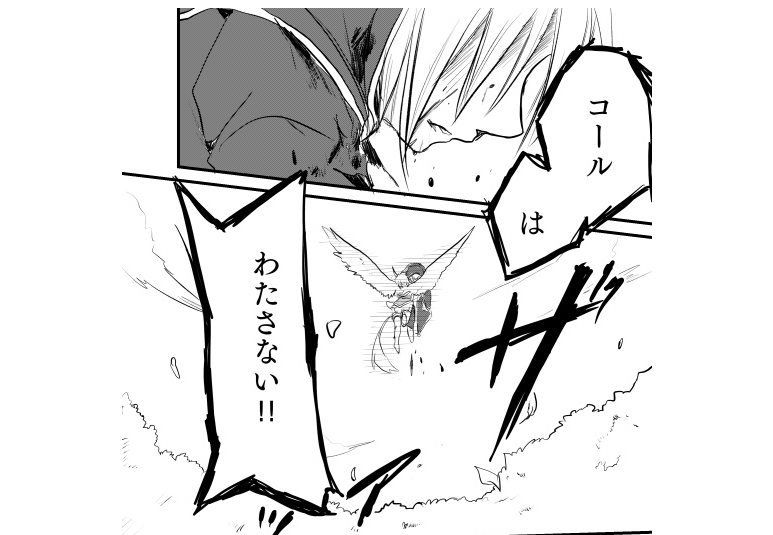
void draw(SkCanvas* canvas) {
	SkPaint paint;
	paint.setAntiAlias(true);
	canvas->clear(0xffffffff);
	canvas->drawImageRect(SkImages::DeferredFromEncodedData(SkData::MakeFromFileName("img1.png")), SkRect::MakeXYWH(122, 8, 530, 527), SkSamplingOptions());
}
